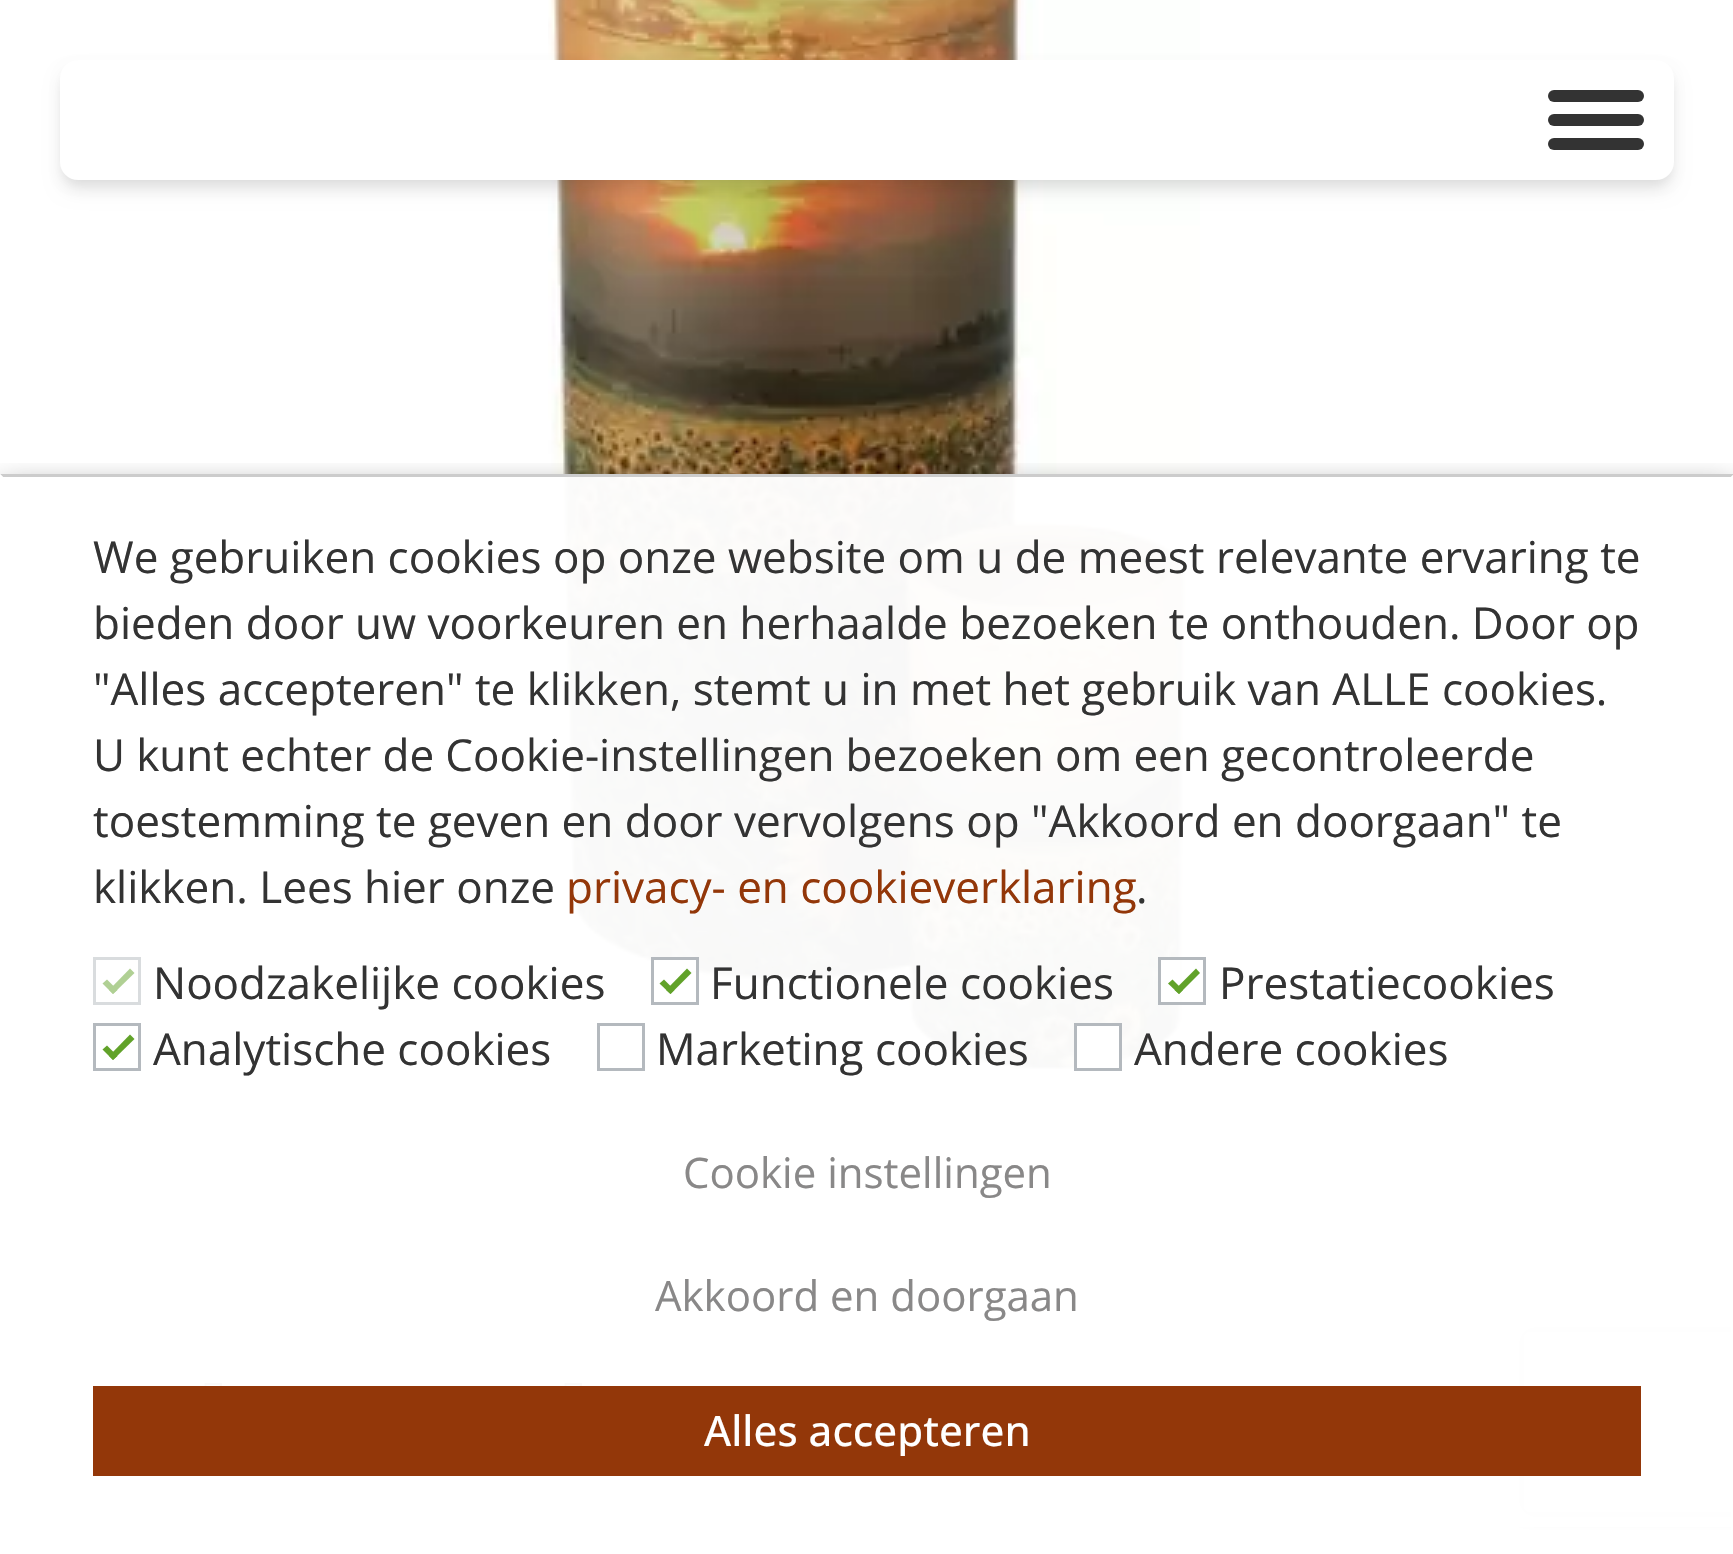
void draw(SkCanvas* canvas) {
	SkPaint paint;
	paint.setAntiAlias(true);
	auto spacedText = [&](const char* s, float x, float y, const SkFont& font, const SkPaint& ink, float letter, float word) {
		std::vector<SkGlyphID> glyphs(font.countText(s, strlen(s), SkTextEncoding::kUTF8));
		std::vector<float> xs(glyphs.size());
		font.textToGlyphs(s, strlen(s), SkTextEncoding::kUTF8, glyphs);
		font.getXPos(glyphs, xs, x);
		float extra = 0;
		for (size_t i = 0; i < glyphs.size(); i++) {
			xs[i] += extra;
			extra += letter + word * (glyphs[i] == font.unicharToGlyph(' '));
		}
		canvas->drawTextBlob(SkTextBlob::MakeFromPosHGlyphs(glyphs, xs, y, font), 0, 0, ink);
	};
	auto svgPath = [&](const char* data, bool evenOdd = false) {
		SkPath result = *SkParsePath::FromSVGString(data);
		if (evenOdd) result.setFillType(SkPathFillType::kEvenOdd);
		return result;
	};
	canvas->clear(0xffffffff);
	canvas->drawImageRect(SkImages::DeferredFromEncodedData(SkData::MakeFromFileName("img1.png")), SkRect::MakeXYWH(548, 0, 652, 1083), SkSamplingOptions());
	paint.setColor(0xff555555);
	canvas->drawPath(svgPath("M204.5 1413V1383H222V1413ZM206.5 1411H219.5V1385H206.5Z"), paint);
	canvas->drawPath(svgPath("M564.5 1413V1383H582V1413ZM566.5 1411H579.5V1385H566.5Z"), paint);
	paint.setColor(0x0f000000);
	paint.setMaskFilter(SkMaskFilter::MakeBlur(kNormal_SkBlurStyle, 6));
	canvas->drawRoundRect(SkRect::MakeXYWH(63, 69, 1608, 114), 15, 15, paint);
	paint.setMaskFilter(nullptr);
	paint.setColor(0x1a000000);
	paint.setMaskFilter(SkMaskFilter::MakeBlur(kNormal_SkBlurStyle, 9));
	canvas->drawRoundRect(SkRect::MakeXYWH(63, 75, 1608, 114), 15, 15, paint);
	paint.setMaskFilter(nullptr);
	paint.setColor(0xffffffff);
	canvas->drawRoundRect(SkRect::MakeXYWH(60, 60, 1614, 120), 18, 18, paint);
	paint.setColor(0xff333333);
	canvas->drawRoundRect(SkRect::MakeXYWH(1548, 90, 96, 12), 6, 6, paint);
	canvas->drawRoundRect(SkRect::MakeXYWH(1548, 114, 96, 12), 6, 6, paint);
	canvas->drawRoundRect(SkRect::MakeXYWH(1548, 138, 96, 12), 6, 6, paint);
	canvas->save();
	canvas->clipRect(SkRect::MakeXYWH(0, 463, 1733, 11));
	paint.setColor(0x80000000);
	paint.setMaskFilter(SkMaskFilter::MakeBlur(kNormal_SkBlurStyle, 15));
	canvas->drawRect(SkRect::MakeXYWH(0, 489, 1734, 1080), paint);
	paint.setMaskFilter(nullptr);
	canvas->restore();
	canvas->save();
	canvas->clipPath(svgPath("M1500 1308H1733V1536H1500ZM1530 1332H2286C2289.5 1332 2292 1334.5 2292 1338V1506C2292 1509.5 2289.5 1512 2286 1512H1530C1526.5 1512 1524 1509.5 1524 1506V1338C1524 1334.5 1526.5 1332 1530 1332Z", true), true);
	paint.setColor(0xff808080);
	paint.setMaskFilter(SkMaskFilter::MakeBlur(kNormal_SkBlurStyle, 7.5));
	canvas->drawRoundRect(SkRect::MakeXYWH(1524, 1332, 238, 180), 6, 6, paint);
	paint.setMaskFilter(nullptr);
	canvas->restore();
	paint.setColor(0xf7ffffff);
	canvas->drawRect(SkRect::MakeXYWH(204, 474, 1529, 1053), paint);
	paint.setColor(0xffcccccc);
	canvas->drawPath(svgPath("M0 474H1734L1731 477H3Z"), paint);
	paint.setColor(0xe6ffffff);
	canvas->drawPath(svgPath("M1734 474V1554L1731 1551V477Z"), paint);
	canvas->drawPath(svgPath("M0 1554V474L3 477V1551Z"), paint);
	SkFont f1(fontMgr->matchFamilyStyle("Open Sans", SkFontStyle::Normal()), 44);
	f1.setSubpixel(true);
	paint.setColor(0xff333333);
	canvas->drawString("We gebruiken cookies op onze website om u de meest relevante ervaring te", 93, 573, f1, paint);
	canvas->drawString("bieden door uw voorkeuren en herhaalde bezoeken te onthouden. Door op", 93, 639, f1, paint);
	canvas->drawString("\"Alles accepteren\" te klikken, stemt u in met het gebruik van ALLE cookies.", 93, 705, f1, paint);
	spacedText("U kunt echter de Cookie-instellingen bezoeken om een gecontroleerde", 93, 771, f1, paint, 0, -0.25);
	canvas->drawString("toestemming te geven en door vervolgens op \"Akkoord en doorgaan\" te", 93, 837, f1, paint);
	canvas->drawString("klikken. Lees hier onze", 93, 903, f1, paint);
	paint.setColor(0xff933709);
	canvas->drawString("privacy- en cookieverklaring", 566, 903, f1, paint);
	paint.setColor(0xff333333);
	canvas->drawString(".", 1136, 903, f1, paint);
	paint.setStroke(true);
	paint.setStrokeWidth(3);
	paint.setColor(0xffd9dcde);
	canvas->drawRect(SkRect::MakeXYWH(94.5, 958.5, 45, 45), paint);
	paint.setStroke(false);
	paint.setColor(0xffb0d094);
	canvas->drawPath(svgPath("M130 968.5L134.5 973L113 994L109 990Z"), paint);
	canvas->drawPath(svgPath("M107 979.5L117.5 990L113 994L102.5 983.5Z"), paint);
	paint.setColor(0xff333333);
	canvas->drawString("Noodzakelijke cookies", 153, 999, f1, paint);
	paint.setColor(0xffffffff);
	canvas->drawRect(SkRect::MakeXYWH(654, 960, 42, 11), paint);
	paint.setStroke(true);
	paint.setColor(0xffb4b9be);
	canvas->drawRect(SkRect::MakeXYWH(652.5, 958.5, 45, 45), paint);
	paint.setStroke(false);
	paint.setColor(0xff61a229);
	canvas->drawPath(svgPath("M687 968.5L691.5 973L670.5 994L666 990Z"), paint);
	canvas->drawPath(svgPath("M664 979.5L674.5 990L670.5 994L659.5 983.5Z"), paint);
	paint.setColor(0xff333333);
	canvas->drawString("Functionele cookies", 710, 999, f1, paint);
	paint.setColor(0xffffffff);
	canvas->drawRect(SkRect::MakeXYWH(1161, 960, 19, 42), paint);
	paint.setStroke(true);
	paint.setColor(0xffb4b9be);
	canvas->drawRect(SkRect::MakeXYWH(1159.5, 958.5, 45, 45), paint);
	paint.setStroke(false);
	paint.setColor(0xff61a229);
	canvas->drawPath(svgPath("M1196 968.5L1200 973L1179 994L1174.5 990Z"), paint);
	canvas->drawPath(svgPath("M1172.5 979.5L1183 990L1179 994L1168 983.5Z"), paint);
	paint.setColor(0xff333333);
	canvas->drawString("Prestatiecookies", 1219, 999, f1, paint);
	paint.setStroke(true);
	paint.setColor(0xffb4b9be);
	canvas->drawRect(SkRect::MakeXYWH(94.5, 1024.5, 45, 45), paint);
	paint.setStroke(false);
	paint.setColor(0xff61a229);
	canvas->drawPath(svgPath("M130 1034.5L134.5 1039L113 1060L109 1056Z"), paint);
	canvas->drawPath(svgPath("M107 1045.5L117.5 1056L113 1060L102.5 1049.5Z"), paint);
	paint.setColor(0xff333333);
	canvas->drawString("Analytische cookies", 153, 1065, f1, paint);
	paint.setStroke(true);
	paint.setColor(0xffb4b9be);
	canvas->drawRect(SkRect::MakeXYWH(598.5, 1024.5, 45, 45), paint);
	paint.setStroke(false);
	paint.setColor(0xff333333);
	canvas->drawString("Marketing cookies", 656, 1065, f1, paint);
	paint.setColor(0xffffffff);
	canvas->drawRect(SkRect::MakeXYWH(1075.5, 1024.5, 45, 45), paint);
	paint.setStroke(true);
	paint.setColor(0xffb4b9be);
	canvas->drawRect(SkRect::MakeXYWH(1075.5, 1024.5, 45, 45), paint);
	paint.setStroke(false);
	paint.setColor(0xff333333);
	canvas->drawString("Andere cookies", 1134, 1065, f1, paint);
	SkFont f2(fontMgr->matchFamilyStyle("Open Sans", SkFontStyle::Normal()), 42);
	f2.setSubpixel(true);
	paint.setColor(0xff898888);
	canvas->drawString("Cookie instellingen", 683, 1188, f2, paint);
	canvas->drawString("Akkoord en doorgaan", 655, 1311, f2, paint);
	paint.setColor(0xff933709);
	canvas->drawRect(SkRect::MakeXYWH(93, 1386, 1548, 90), paint);
	SkFont f3(fontMgr->matchFamilyStyle("Open Sans", SkFontStyle(500, SkFontStyle::kNormal_Width, SkFontStyle::kUpright_Slant)), 42);
	f3.setSubpixel(true);
	paint.setColor(0xffffffff);
	canvas->drawString("Alles accepteren", 704, 1446, f3, paint);
}
